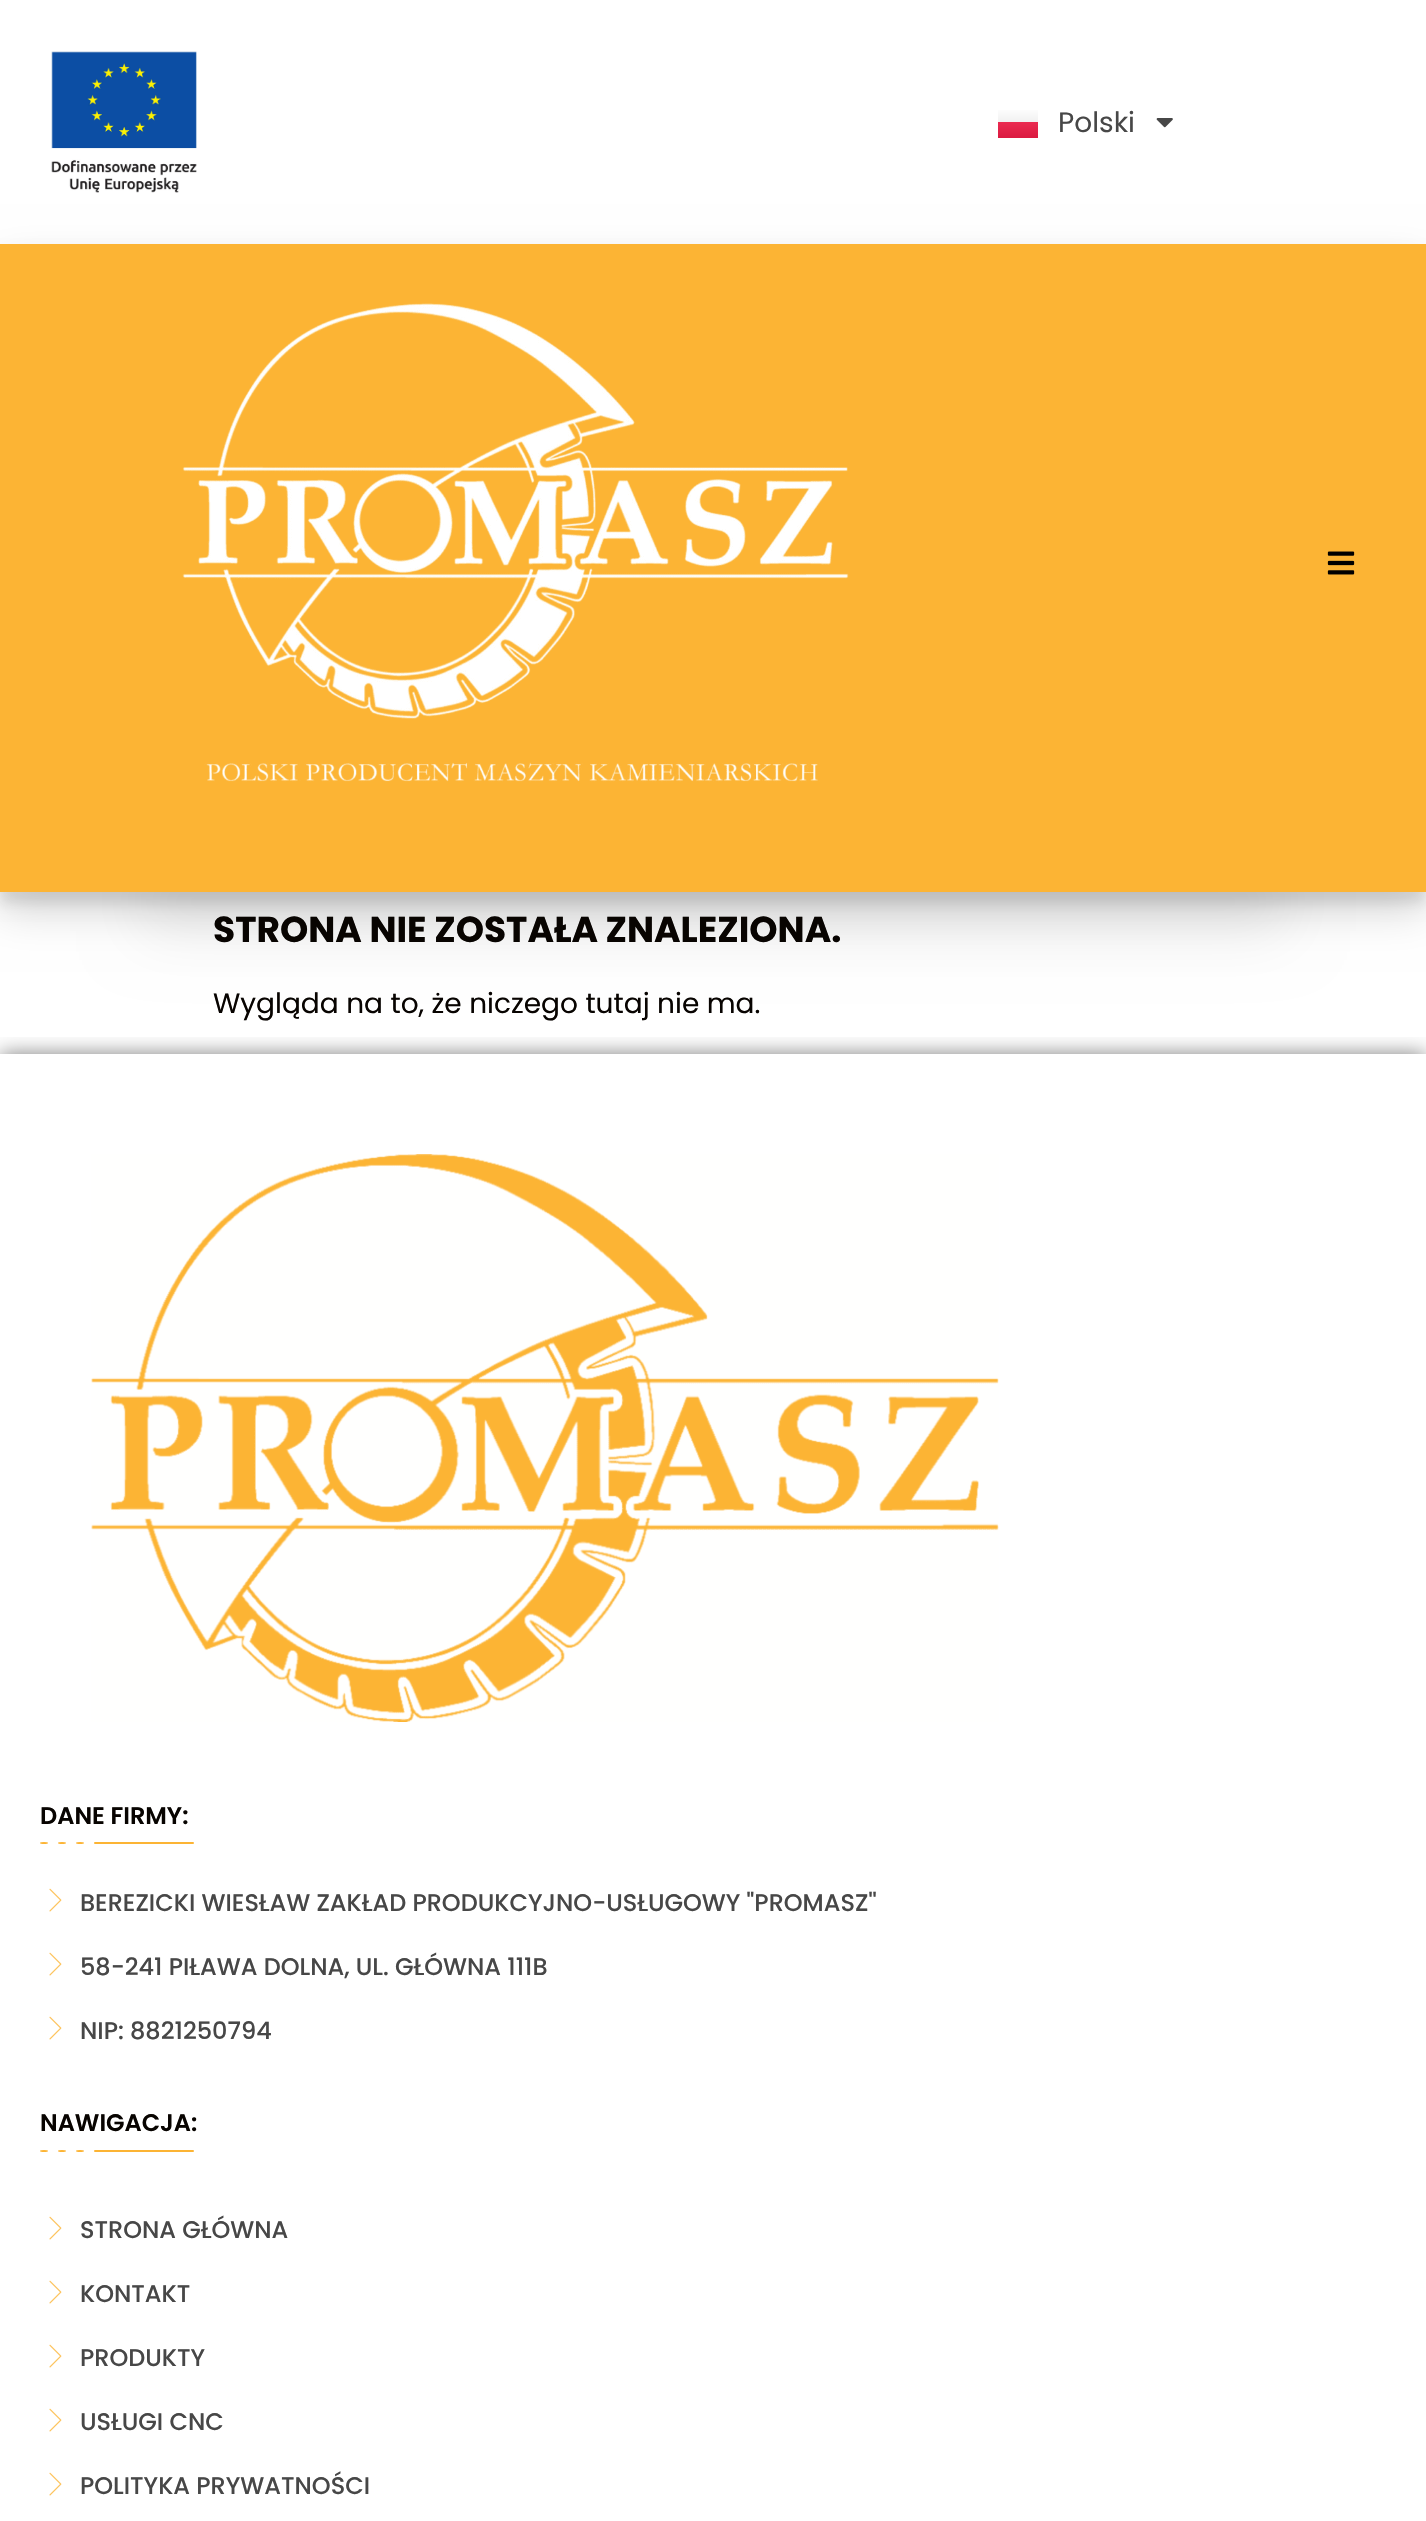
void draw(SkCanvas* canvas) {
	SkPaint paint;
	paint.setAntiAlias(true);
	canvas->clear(0xffffffff);
	canvas->drawImageRect(SkImages::DeferredFromEncodedData(SkData::MakeFromFileName("img1.png")), SkRect::MakeXYWH(51, 51, 146, 142), SkSamplingOptions());
	{
		const SkColor colors[] = {0xffeb2a50, 0xffda1b40};
		const float stops[] = {0, 1};
		const SkPoint ends[] = {{1019, 122}, {1019, 138}};
		paint.setShader(SkGradientShader::MakeLinear(ends, colors, stops, 2, SkTileMode::kClamp));
		paint.setAlpha(255);
	}
	canvas->drawRect(SkRect::MakeXYWH(998, 122, 40, 16), paint);
	{
		const SkColor colors[] = {0xffffffff, 0xfff0f0f0};
		const float stops[] = {0, 1};
		const SkPoint ends[] = {{1019, 108}, {1019, 122}};
		paint.setShader(SkGradientShader::MakeLinear(ends, colors, stops, 2, SkTileMode::kClamp));
		paint.setAlpha(255);
	}
	canvas->drawRect(SkRect::MakeXYWH(998, 110, 40, 12), paint);
	SkFont f1(fontMgr->matchFamilyStyle("Poppins", SkFontStyle::Normal()), 28);
	f1.setSubpixel(true);
	paint.setShader(nullptr);
	paint.setColor(0xff474747);
	canvas->drawString("Polski", 1058, 132, f1, paint);
	canvas->drawImageRect(SkImages::DeferredFromEncodedData(SkData::MakeFromFileName("img2.png")), SkRect::MakeXYWH(1156, 118, 17, 10), SkSamplingOptions());
	paint.setColor(0x1a000000);
	paint.setMaskFilter(SkMaskFilter::MakeBlur(kNormal_SkBlurStyle, 6));
	canvas->drawRect(SkRect::MakeXYWH(0, 256, 1426, 648), paint);
	paint.setMaskFilter(nullptr);
	paint.setColor(0x26000000);
	paint.setMaskFilter(SkMaskFilter::MakeBlur(kNormal_SkBlurStyle, 20));
	canvas->drawRect(SkRect::MakeXYWH(0, 264, 1426, 648), paint);
	paint.setMaskFilter(nullptr);
	paint.setColor(0x12000000);
	paint.setMaskFilter(SkMaskFilter::MakeBlur(kNormal_SkBlurStyle, 30));
	canvas->drawRect(SkRect::MakeXYWH(142, 872, 1142, 60), paint);
	paint.setMaskFilter(nullptr);
	paint.setColor(0xfffcb434);
	canvas->drawRect(SkRect::MakeXYWH(0, 244, 1426, 648), paint);
	canvas->drawImageRect(SkImages::DeferredFromEncodedData(SkData::MakeFromFileName("img3.png")), SkRect::MakeXYWH(182, 303, 667, 479), SkSamplingOptions());
	canvas->drawImageRect(SkImages::DeferredFromEncodedData(SkData::MakeFromFileName("img4.png")), SkRect::MakeXYWH(1327, 551, 28, 24), SkSamplingOptions());
	SkFont f2(fontMgr->matchFamilyStyle("Poppins", SkFontStyle::Bold()), 36);
	f2.setSubpixel(true);
	paint.setColor(0xff080401);
	canvas->drawString("STRONA NIE ZOSTAŁA ZNALEZIONA.", 213, 942, f2, paint);
	canvas->drawString("Wygląda na to, że niczego tutaj nie ma.", 213, 1013, f1, paint);
	canvas->save();
	canvas->clipRect(SkRect::MakeXYWH(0, 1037, 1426, 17));
	paint.setColor(0x80000000);
	paint.setMaskFilter(SkMaskFilter::MakeBlur(kNormal_SkBlurStyle, 10));
	canvas->drawRect(SkRect::MakeXYWH(0, 1054, 1426, 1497), paint);
	paint.setMaskFilter(nullptr);
	canvas->restore();
	canvas->drawImageRect(SkImages::DeferredFromEncodedData(SkData::MakeFromFileName("img5.png")), SkRect::MakeXYWH(91, 1154, 908, 568), SkSamplingOptions());
	SkFont f3(fontMgr->matchFamilyStyle("Poppins", SkFontStyle(600, SkFontStyle::kNormal_Width, SkFontStyle::kUpright_Slant)), 24);
	f3.setSubpixel(true);
	paint.setColor(0xff080401);
	canvas->drawString("DANE FIRMY:", 40, 1824, f3, paint);
	paint.setColor(0xfffcb434);
	canvas->drawRoundRect(SkRect::MakeXYWH(94, 1842, 100, 2), 1, 1, paint);
	canvas->drawOval(SkRect::MakeXYWH(76, 1842, 8, 2), paint);
	canvas->drawOval(SkRect::MakeXYWH(58, 1842, 8, 2), paint);
	canvas->drawOval(SkRect::MakeXYWH(40, 1842, 8, 2), paint);
	canvas->drawImageRect(SkImages::DeferredFromEncodedData(SkData::MakeFromFileName("img6.png")), SkRect::MakeXYWH(49, 1888, 13, 24), SkSamplingOptions());
	SkFont f4(fontMgr->matchFamilyStyle("Poppins", SkFontStyle(500, SkFontStyle::kNormal_Width, SkFontStyle::kUpright_Slant)), 24);
	f4.setSubpixel(true);
	paint.setColor(0xff474747);
	canvas->drawString("BEREZICKI WIESŁAW ZAKŁAD PRODUKCYJNO-USŁUGOWY \"PROMASZ''", 80, 1911, f4, paint);
	canvas->drawImageRect(SkImages::DeferredFromEncodedData(SkData::MakeFromFileName("img6.png")), SkRect::MakeXYWH(49, 1952, 13, 24), SkSamplingOptions());
	canvas->drawString("58-241 PIŁAWA DOLNA, UL. GŁÓWNA 111B", 80, 1975, f4, paint);
	canvas->drawImageRect(SkImages::DeferredFromEncodedData(SkData::MakeFromFileName("img6.png")), SkRect::MakeXYWH(49, 2016, 13, 24), SkSamplingOptions());
	canvas->drawString("NIP: 8821250794", 80, 2039, f4, paint);
	paint.setColor(0xff080401);
	canvas->drawString("NAWIGACJA:", 40, 2131, f3, paint);
	paint.setColor(0xfffcb434);
	canvas->drawRoundRect(SkRect::MakeXYWH(94, 2150, 100, 2), 1, 1, paint);
	canvas->drawOval(SkRect::MakeXYWH(76, 2150, 8, 2), paint);
	canvas->drawOval(SkRect::MakeXYWH(58, 2150, 8, 2), paint);
	canvas->drawOval(SkRect::MakeXYWH(40, 2150, 8, 2), paint);
	canvas->drawImageRect(SkImages::DeferredFromEncodedData(SkData::MakeFromFileName("img6.png")), SkRect::MakeXYWH(49, 2216, 13, 24), SkSamplingOptions());
	paint.setColor(0xff474747);
	canvas->drawString("STRONA GŁÓWNA", 80, 2238, f4, paint);
	canvas->drawImageRect(SkImages::DeferredFromEncodedData(SkData::MakeFromFileName("img6.png")), SkRect::MakeXYWH(49, 2280, 13, 24), SkSamplingOptions());
	canvas->drawString("KONTAKT", 80, 2302, f4, paint);
	canvas->drawImageRect(SkImages::DeferredFromEncodedData(SkData::MakeFromFileName("img6.png")), SkRect::MakeXYWH(49, 2344, 13, 24), SkSamplingOptions());
	canvas->drawString("PRODUKTY", 80, 2366, f4, paint);
	canvas->drawImageRect(SkImages::DeferredFromEncodedData(SkData::MakeFromFileName("img6.png")), SkRect::MakeXYWH(49, 2408, 13, 24), SkSamplingOptions());
	canvas->drawString("USŁUGI CNC", 80, 2430, f4, paint);
	canvas->drawImageRect(SkImages::DeferredFromEncodedData(SkData::MakeFromFileName("img6.png")), SkRect::MakeXYWH(49, 2472, 13, 24), SkSamplingOptions());
	canvas->drawString("POLITYKA PRYWATNOŚCI", 80, 2494, f4, paint);
}
